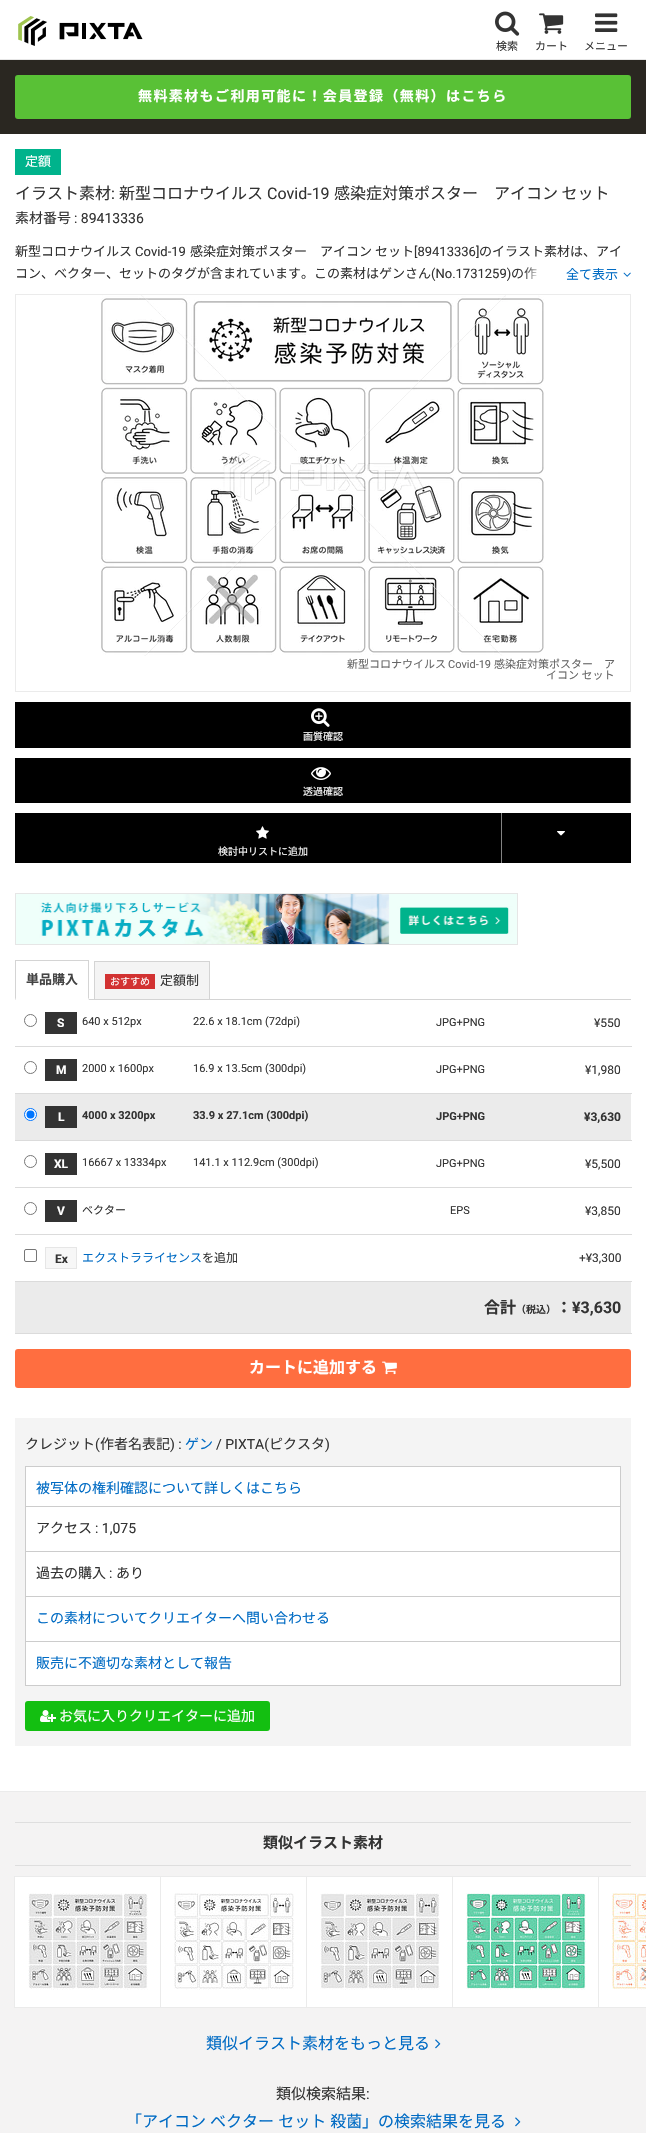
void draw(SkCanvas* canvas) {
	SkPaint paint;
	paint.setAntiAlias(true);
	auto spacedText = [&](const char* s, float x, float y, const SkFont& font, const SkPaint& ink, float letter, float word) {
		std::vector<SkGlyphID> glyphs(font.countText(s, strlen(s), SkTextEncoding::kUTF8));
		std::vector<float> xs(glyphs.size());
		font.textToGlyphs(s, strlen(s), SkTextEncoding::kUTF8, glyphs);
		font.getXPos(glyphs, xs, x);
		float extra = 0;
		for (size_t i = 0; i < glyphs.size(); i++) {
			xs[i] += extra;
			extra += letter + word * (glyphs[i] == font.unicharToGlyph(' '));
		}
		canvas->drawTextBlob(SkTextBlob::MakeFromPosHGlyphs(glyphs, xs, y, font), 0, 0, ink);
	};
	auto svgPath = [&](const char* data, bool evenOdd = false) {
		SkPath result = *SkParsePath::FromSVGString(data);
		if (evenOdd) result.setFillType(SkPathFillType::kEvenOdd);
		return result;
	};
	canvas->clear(0xffffffff);
	paint.setColor(0xffe6e6e6);
	canvas->drawRect(SkRect::MakeXYWH(0, 59, 646, 1), paint);
	canvas->drawImageRect(SkImages::DeferredFromEncodedData(SkData::MakeFromFileName("img1.png")), SkRect::MakeXYWH(18, 16, 125, 30), SkSamplingOptions());
	canvas->drawImageRect(SkImages::DeferredFromEncodedData(SkData::MakeFromFileName("img2.png")), SkRect::MakeXYWH(495, 11, 25, 25), SkSamplingOptions());
	SkFont f1(fontMgr->matchFamilyStyle("Noto Sans CJK JP", SkFontStyle::Normal()), 11);
	f1.setSubpixel(true);
	paint.setColor(0xff333333);
	canvas->drawString("検索", 496, 50, f1, paint);
	canvas->drawImageRect(SkImages::DeferredFromEncodedData(SkData::MakeFromFileName("img3.png")), SkRect::MakeXYWH(539, 13, 25, 21), SkSamplingOptions());
	canvas->drawString("カート", 535, 50, f1, paint);
	canvas->drawImageRect(SkImages::DeferredFromEncodedData(SkData::MakeFromFileName("img4.png")), SkRect::MakeXYWH(595, 13, 23, 19), SkSamplingOptions());
	canvas->drawString("メニュー", 584, 50, f1, paint);
	paint.setColor(0xff2a2721);
	canvas->drawRect(SkRect::MakeXYWH(0, 60, 646, 74), paint);
	paint.setColor(0xff59c136);
	canvas->drawRoundRect(SkRect::MakeXYWH(15, 75, 616, 44), 3, 3, paint);
	SkFont f2(fontMgr->matchFamilyStyle("Noto Sans CJK JP", SkFontStyle::Bold()), 14);
	f2.setSubpixel(true);
	paint.setColor(0xffffffff);
	spacedText("無料素材もご利用可能に！会員登録（無料）はこちら", 138, 101, f2, paint, 1.4, 0);
	paint.setColor(0xff00b38c);
	canvas->drawRect(SkRect::MakeXYWH(15, 149, 46, 26), paint);
	SkFont f3(fontMgr->matchFamilyStyle("Noto Sans CJK JP", SkFontStyle::Normal()), 13);
	f3.setSubpixel(true);
	paint.setColor(0xffffffff);
	canvas->drawString("定額", 25, 166, f3, paint);
	SkFont f4(fontMgr->matchFamilyStyle("Noto Sans CJK JP", SkFontStyle::Normal()), 16);
	f4.setSubpixel(true);
	paint.setColor(0xff333333);
	canvas->drawString("イラスト素材", 15, 199, f4, paint);
	SkFont f5(fontMgr->matchFamilyStyle("Roboto", SkFontStyle::Normal()), 16);
	f5.setSubpixel(true);
	canvas->drawString(":", 111, 199, f5, paint);
	canvas->drawString("新型コロナウイルス", 119, 199, f4, paint);
	canvas->drawString("Covid-19", 267, 199, f5, paint);
	canvas->drawString("感染症対策ポスター　アイコン セット", 334, 199, f4, paint);
	SkFont f6(fontMgr->matchFamilyStyle("Noto Sans CJK JP", SkFontStyle::Normal()), 14);
	f6.setSubpixel(true);
	canvas->drawString("素材番号", 15, 223, f6, paint);
	SkFont f7(fontMgr->matchFamilyStyle("Roboto", SkFontStyle::Normal()), 14);
	f7.setSubpixel(true);
	canvas->drawString(": 89413336", 74, 223, f7, paint);
	canvas->drawString("新型コロナウイルス", 15, 256, f3, paint);
	SkFont f8(fontMgr->matchFamilyStyle("Roboto", SkFontStyle::Normal()), 13);
	f8.setSubpixel(true);
	canvas->drawString("Covid-19", 135, 256, f8, paint);
	canvas->drawString("感染症対策ポスター　アイコン セット", 190, 256, f3, paint);
	canvas->drawString("[89413336]", 414, 256, f8, paint);
	canvas->drawString("のイラスト素材は、アイ", 479, 256, f3, paint);
	canvas->drawString("コン、ベクター、セットのタグが含まれています。この素材はゲンさん", 15, 278, f3, paint);
	canvas->drawString("(No.1731259)", 431, 278, f8, paint);
	canvas->drawString("の作", 511, 278, f3, paint);
	paint.setStroke(true);
	paint.setStrokeWidth(1);
	paint.setColor(0xffebebeb);
	canvas->drawRect(SkRect::MakeXYWH(15.5, 294.5, 615, 397), paint);
	canvas->drawImageRect(SkImages::DeferredFromEncodedData(SkData::MakeFromFileName("img6.png")), SkRect::MakeXYWH(101, 295, 443, 361), SkSamplingOptions());
	canvas->save();
	canvas->clipRect(SkRect::MakeXYWH(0, 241, 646, 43));
	paint.setStroke(false);
	paint.setColor(0xe6ffffff);
	paint.setMaskFilter(SkMaskFilter::MakeBlur(kNormal_SkBlurStyle, 5));
	canvas->drawRect(SkRect::MakeXYWH(531, 265, 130, 79), paint);
	paint.setMaskFilter(nullptr);
	canvas->restore();
	paint.setColor(0xff006bc4);
	canvas->drawString("全て表示", 566, 279, f3, paint);
	canvas->drawImageRect(SkImages::DeferredFromEncodedData(SkData::MakeFromFileName("img5.png")), SkRect::MakeXYWH(623, 272, 8, 5), SkSamplingOptions());
	paint.setColor(0xff666666);
	canvas->drawString("新型コロナウイルス", 347, 668, f1, paint);
	SkFont f9(fontMgr->matchFamilyStyle("Roboto", SkFontStyle::Normal()), 11);
	f9.setSubpixel(true);
	canvas->drawString("Covid-19", 448, 668, f9, paint);
	canvas->drawString("感染症対策ポスター　ア", 494, 668, f1, paint);
	canvas->drawString("イコン セット", 546, 679, f1, paint);
	paint.setColor(0xff000000);
	canvas->drawRect(SkRect::MakeXYWH(15, 702, 615, 46), paint);
	paint.setColor(0xff444444);
	canvas->drawRect(SkRect::MakeXYWH(630, 702, 1, 46), paint);
	canvas->drawImageRect(SkImages::DeferredFromEncodedData(SkData::MakeFromFileName("img7.png")), SkRect::MakeXYWH(311, 708, 19, 19), SkSamplingOptions());
	SkFont f10(fontMgr->matchFamilyStyle("Noto Sans CJK JP", SkFontStyle::Normal()), 10);
	f10.setSubpixel(true);
	paint.setColor(0xffffffff);
	canvas->drawString("画質確認", 303, 740, f10, paint);
	paint.setColor(0xff000000);
	canvas->drawRect(SkRect::MakeXYWH(15, 758, 615, 45), paint);
	paint.setColor(0xff444444);
	canvas->drawRect(SkRect::MakeXYWH(630, 758, 1, 45), paint);
	canvas->drawImageRect(SkImages::DeferredFromEncodedData(SkData::MakeFromFileName("img8.png")), SkRect::MakeXYWH(311, 767, 20, 13), SkSamplingOptions());
	paint.setColor(0xffffffff);
	canvas->drawString("透過確認", 303, 795, f10, paint);
	paint.setColor(0xff000000);
	canvas->drawRect(SkRect::MakeXYWH(15, 813, 616, 50), paint);
	canvas->drawImageRect(SkImages::DeferredFromEncodedData(SkData::MakeFromFileName("img9.png")), SkRect::MakeXYWH(557, 831, 8, 5), SkSamplingOptions());
	paint.setColor(0xff838383);
	canvas->drawRect(SkRect::MakeXYWH(501, 813, 1, 50), paint);
	canvas->drawImageRect(SkImages::DeferredFromEncodedData(SkData::MakeFromFileName("img10.png")), SkRect::MakeXYWH(256, 826, 13, 13), SkSamplingOptions());
	paint.setColor(0xffffffff);
	canvas->drawString("検討中リストに追加", 218, 855, f10, paint);
	paint.setStroke(true);
	paint.setColor(0xffe6e6e6);
	canvas->drawRect(SkRect::MakeXYWH(15.5, 893.5, 502, 51), paint);
	canvas->drawImageRect(SkImages::DeferredFromEncodedData(SkData::MakeFromFileName("img11.png")), SkRect::MakeXYWH(16, 894, 501, 50), SkSamplingOptions());
	paint.setStroke(false);
	paint.setColor(0xffd4d4d4);
	canvas->drawRect(SkRect::MakeXYWH(15, 999, 616, 1), paint);
	canvas->drawRect(SkRect::MakeXYWH(15, 960, 74, 1), paint);
	canvas->drawPath(svgPath("M89 960V1000L88 998V961Z"), paint);
	paint.setColor(0xffffffff);
	canvas->drawPath(svgPath("M89 1000H15L16 998H88Z"), paint);
	paint.setColor(0xffd4d4d4);
	canvas->drawPath(svgPath("M15 1000V960L16 961V998Z"), paint);
	SkFont f11(fontMgr->matchFamilyStyle("Noto Sans CJK JP", SkFontStyle::Bold()), 13);
	f11.setSubpixel(true);
	paint.setColor(0xff444444);
	canvas->drawString("単品購入", 26, 984, f11, paint);
	paint.setColor(0xfff4f4f4);
	canvas->drawRect(SkRect::MakeXYWH(95, 962, 114, 37), paint);
	paint.setColor(0xffd4d4d4);
	canvas->drawRect(SkRect::MakeXYWH(94, 961, 116, 1), paint);
	canvas->drawRect(SkRect::MakeXYWH(209, 961, 1, 38), paint);
	canvas->drawRect(SkRect::MakeXYWH(94, 961, 1, 38), paint);
	paint.setColor(0xffd23232);
	canvas->drawRect(SkRect::MakeXYWH(105, 974, 50, 15), paint);
	paint.setColor(0xffffffff);
	canvas->drawString("おすすめ", 110, 985, f10, paint);
	paint.setColor(0xff333333);
	canvas->drawString("定額制", 160, 985, f3, paint);
	paint.setStroke(true);
	paint.setColor(0xff767676);
	canvas->drawCircle(30.5, 1020.5, 6, paint);
	paint.setStroke(false);
	paint.setColor(0xff333333);
	canvas->drawRect(SkRect::MakeXYWH(45, 1012, 32, 22), paint);
	SkFont f12(fontMgr->matchFamilyStyle("Roboto", SkFontStyle::Bold()), 12);
	f12.setSubpixel(true);
	paint.setColor(0xffffffff);
	canvas->drawString("S", 57, 1027, f12, paint);
	paint.setColor(0xff333333);
	canvas->drawString("640 x 512px", 82, 1025, f9, paint);
	canvas->drawString("22.6 x 18.1cm (72dpi)", 193, 1025, f9, paint);
	canvas->drawString("JPG+PNG", 436, 1026, f9, paint);
	paint.setColor(0xffdbdbdb);
	canvas->drawRect(SkRect::MakeXYWH(15, 1046, 617, 1), paint);
	SkFont f13(fontMgr->matchFamilyStyle("Roboto", SkFontStyle::Normal()), 12);
	f13.setSubpixel(true);
	paint.setColor(0xff333333);
	canvas->drawString("¥550", 594, 1027, f13, paint);
	paint.setStroke(true);
	paint.setColor(0xff767676);
	canvas->drawCircle(30.5, 1067.5, 6, paint);
	paint.setStroke(false);
	paint.setColor(0xff333333);
	canvas->drawRect(SkRect::MakeXYWH(45, 1059, 32, 22), paint);
	paint.setColor(0xffffffff);
	canvas->drawString("M", 56, 1074, f12, paint);
	paint.setColor(0xff333333);
	canvas->drawString("2000 x 1600px", 82, 1072, f9, paint);
	canvas->drawString("16.9 x 13.5cm (300dpi)", 193, 1072, f9, paint);
	canvas->drawString("JPG+PNG", 436, 1073, f9, paint);
	paint.setColor(0xffdbdbdb);
	canvas->drawRect(SkRect::MakeXYWH(15, 1093, 617, 1), paint);
	paint.setColor(0xff333333);
	canvas->drawString("¥1,980", 585, 1074, f13, paint);
	paint.setColor(0xffebebeb);
	canvas->drawRect(SkRect::MakeXYWH(15, 1094, 616, 46), paint);
	paint.setColor(0xffffffff);
	canvas->drawCircle(30.5, 1114.5, 6, paint);
	paint.setStroke(true);
	paint.setColor(0xff0075ff);
	canvas->drawCircle(30.5, 1114.5, 6, paint);
	paint.setStroke(false);
	canvas->drawCircle(30.5, 1114.5, 4, paint);
	paint.setColor(0xff333333);
	canvas->drawRect(SkRect::MakeXYWH(45, 1106, 32, 22), paint);
	paint.setColor(0xffffffff);
	canvas->drawString("L", 58, 1121, f12, paint);
	SkFont f14(fontMgr->matchFamilyStyle("Roboto", SkFontStyle::Bold()), 11);
	f14.setSubpixel(true);
	paint.setColor(0xff333333);
	canvas->drawString("4000 x 3200px", 82, 1119, f14, paint);
	canvas->drawString("33.9 x 27.1cm (300dpi)", 193, 1119, f14, paint);
	canvas->drawString("JPG+PNG", 436, 1120, f14, paint);
	paint.setColor(0xffdbdbdb);
	canvas->drawRect(SkRect::MakeXYWH(15, 1140, 617, 1), paint);
	paint.setColor(0xff333333);
	canvas->drawString("¥3,630", 584, 1121, f12, paint);
	paint.setStroke(true);
	paint.setColor(0xff767676);
	canvas->drawCircle(30.5, 1161.5, 6, paint);
	paint.setStroke(false);
	paint.setColor(0xff333333);
	canvas->drawRect(SkRect::MakeXYWH(45, 1153, 32, 22), paint);
	paint.setColor(0xffffffff);
	canvas->drawString("XL", 54, 1168, f12, paint);
	paint.setColor(0xff333333);
	canvas->drawString("16667 x 13334px", 82, 1166, f9, paint);
	canvas->drawString("141.1 x 112.9cm (300dpi)", 193, 1166, f9, paint);
	canvas->drawString("JPG+PNG", 436, 1167, f9, paint);
	paint.setColor(0xffdbdbdb);
	canvas->drawRect(SkRect::MakeXYWH(15, 1187, 617, 1), paint);
	paint.setColor(0xff333333);
	canvas->drawString("¥5,500", 585, 1168, f13, paint);
	paint.setStroke(true);
	paint.setColor(0xff767676);
	canvas->drawCircle(30.5, 1208.5, 6, paint);
	paint.setStroke(false);
	paint.setColor(0xff333333);
	canvas->drawRect(SkRect::MakeXYWH(45, 1200, 32, 22), paint);
	paint.setColor(0xffffffff);
	canvas->drawString("V", 57, 1215, f12, paint);
	paint.setColor(0xff333333);
	canvas->drawString("ベクター", 82, 1214, f1, paint);
	canvas->drawString("EPS", 450, 1214, f9, paint);
	paint.setColor(0xffdbdbdb);
	canvas->drawRect(SkRect::MakeXYWH(15, 1234, 617, 1), paint);
	paint.setColor(0xff333333);
	canvas->drawString("¥3,850", 585, 1215, f13, paint);
	paint.setStroke(true);
	paint.setColor(0xff767676);
	canvas->drawRoundRect(SkRect::MakeXYWH(24.5, 1249.5, 12, 12), 1.5, 1.5, paint);
	paint.setStroke(false);
	paint.setColor(0xfff7f7f7);
	canvas->drawRect(SkRect::MakeXYWH(45.5, 1247.5, 31, 21), paint);
	paint.setStroke(true);
	paint.setColor(0xffe6e6e6);
	canvas->drawRect(SkRect::MakeXYWH(45.5, 1247.5, 31, 21), paint);
	paint.setStroke(false);
	paint.setColor(0xff333333);
	canvas->drawString("Ex", 55, 1263, f12, paint);
	SkFont f15(fontMgr->matchFamilyStyle("Noto Sans CJK JP", SkFontStyle::Normal()), 12);
	f15.setSubpixel(true);
	paint.setColor(0xff006bc4);
	canvas->drawString("エクストラライセンス", 82, 1262, f15, paint);
	paint.setColor(0xff333333);
	canvas->drawString("を追加", 202, 1262, f15, paint);
	paint.setColor(0xffdbdbdb);
	canvas->drawRect(SkRect::MakeXYWH(15, 1281, 617, 1), paint);
	paint.setColor(0xff333333);
	canvas->drawString("+¥3,300", 579, 1262, f13, paint);
	paint.setColor(0xffebebeb);
	canvas->drawRect(SkRect::MakeXYWH(15, 1282, 616, 51), paint);
	paint.setColor(0xffdbdbdb);
	canvas->drawRect(SkRect::MakeXYWH(15, 1333, 617, 1), paint);
	SkFont f16(fontMgr->matchFamilyStyle("Noto Sans CJK JP", SkFontStyle::Bold()), 16);
	f16.setSubpixel(true);
	paint.setColor(0xff333333);
	canvas->drawString("合計", 484, 1313, f16, paint);
	SkFont f17(fontMgr->matchFamilyStyle("Noto Sans CJK JP", SkFontStyle::Bold()), 10);
	f17.setSubpixel(true);
	canvas->drawString("（税込）", 516, 1313, f17, paint);
	canvas->drawString("：", 556, 1313, f16, paint);
	SkFont f18(fontMgr->matchFamilyStyle("Roboto", SkFontStyle::Bold()), 16);
	f18.setSubpixel(true);
	canvas->drawString("¥3,630", 572, 1313, f18, paint);
	paint.setColor(0xffff6e40);
	canvas->drawRoundRect(SkRect::MakeXYWH(15, 1349, 616, 39), 3, 3, paint);
	paint.setColor(0xffffffff);
	canvas->drawString("カートに追加する", 249, 1373, f16, paint);
	canvas->drawImageRect(SkImages::DeferredFromEncodedData(SkData::MakeFromFileName("img12.png")), SkRect::MakeXYWH(382, 1361, 15, 14), SkSamplingOptions());
	paint.setColor(0xfff4f4f4);
	canvas->drawRect(SkRect::MakeXYWH(15, 1418, 616, 328), paint);
	paint.setColor(0xff333333);
	canvas->drawString("クレジット", 25, 1449, f6, paint);
	canvas->drawString("(", 95, 1449, f7, paint);
	canvas->drawString("作者名表記", 100, 1449, f6, paint);
	canvas->drawString(") :", 170, 1449, f7, paint);
	paint.setColor(0xff006bc4);
	canvas->drawString("ゲン", 185, 1449, f6, paint);
	paint.setColor(0xff333333);
	canvas->drawString("/ PIXTA(", 216, 1449, f7, paint);
	canvas->drawString("ピクスタ", 269, 1449, f6, paint);
	canvas->drawString(")", 325, 1449, f7, paint);
	paint.setColor(0xffffffff);
	canvas->drawRect(SkRect::MakeXYWH(25.5, 1466.5, 595, 40), paint);
	paint.setStroke(true);
	paint.setColor(0xffcccccc);
	canvas->drawRect(SkRect::MakeXYWH(25.5, 1466.5, 595, 40), paint);
	paint.setStroke(false);
	paint.setColor(0xff006bc4);
	canvas->drawString("被写体の権利確認について詳しくはこちら", 36, 1493, f6, paint);
	paint.setColor(0xffffffff);
	canvas->drawRect(SkRect::MakeXYWH(25.5, 1506.5, 595, 45), paint);
	paint.setStroke(true);
	paint.setColor(0xffcccccc);
	canvas->drawRect(SkRect::MakeXYWH(25.5, 1506.5, 595, 45), paint);
	paint.setStroke(false);
	paint.setColor(0xff333333);
	canvas->drawString("アクセス", 36, 1533, f6, paint);
	canvas->drawString(": 1,075", 95, 1533, f7, paint);
	paint.setColor(0xffffffff);
	canvas->drawRect(SkRect::MakeXYWH(25.5, 1551.5, 595, 45), paint);
	paint.setStroke(true);
	paint.setColor(0xffcccccc);
	canvas->drawRect(SkRect::MakeXYWH(25.5, 1551.5, 595, 45), paint);
	paint.setStroke(false);
	paint.setColor(0xff333333);
	canvas->drawString("過去の購入", 36, 1578, f6, paint);
	canvas->drawString(":", 109, 1578, f7, paint);
	canvas->drawString("あり", 116, 1578, f6, paint);
	paint.setColor(0xffffffff);
	canvas->drawRect(SkRect::MakeXYWH(25.5, 1596.5, 595, 45), paint);
	paint.setStroke(true);
	paint.setColor(0xffcccccc);
	canvas->drawRect(SkRect::MakeXYWH(25.5, 1596.5, 595, 45), paint);
	paint.setStroke(false);
	paint.setColor(0xff006bc4);
	canvas->drawString("この素材についてクリエイターへ問い合わせる", 36, 1623, f6, paint);
	paint.setColor(0xffffffff);
	canvas->drawRect(SkRect::MakeXYWH(25.5, 1641.5, 595, 44), paint);
	paint.setStroke(true);
	paint.setColor(0xffcccccc);
	canvas->drawRect(SkRect::MakeXYWH(25.5, 1641.5, 595, 44), paint);
	paint.setStroke(false);
	paint.setColor(0xff006bc4);
	canvas->drawString("販売に不適切な素材として報告", 36, 1668, f6, paint);
	paint.setColor(0xff13bf11);
	canvas->drawRoundRect(SkRect::MakeXYWH(25, 1701, 245, 30), 3, 3, paint);
	canvas->drawImageRect(SkImages::DeferredFromEncodedData(SkData::MakeFromFileName("img13.png")), SkRect::MakeXYWH(40, 1710, 16, 12), SkSamplingOptions());
	paint.setColor(0xffffffff);
	canvas->drawString("お気に入りクリエイターに追加", 59, 1721, f6, paint);
	paint.setColor(0xfff4f3f3);
	canvas->drawRect(SkRect::MakeXYWH(0, 1792, 646, 341), paint);
	paint.setColor(0xffebebeb);
	canvas->drawRect(SkRect::MakeXYWH(0, 1791, 646, 1), paint);
	paint.setColor(0xffdedede);
	canvas->drawRect(SkRect::MakeXYWH(15, 1822, 616, 1), paint);
	canvas->drawRect(SkRect::MakeXYWH(15, 1865, 616, 1), paint);
	SkFont f19(fontMgr->matchFamilyStyle("Noto Sans CJK JP", SkFontStyle::Bold()), 15);
	f19.setSubpixel(true);
	paint.setColor(0xff333333);
	canvas->drawString("類似イラスト素材", 263, 1848, f19, paint);
	paint.setStroke(true);
	paint.setColor(0xffebebeb);
	canvas->drawRect(SkRect::MakeXYWH(14.5, 1876.5, 146, 131), paint);
	paint.setStroke(false);
	paint.setColor(0xffffffff);
	canvas->drawRect(SkRect::MakeXYWH(15, 1877, 145, 130), paint);
	canvas->drawImageRect(SkImages::DeferredFromEncodedData(SkData::MakeFromFileName("img14.png")), SkRect::MakeXYWH(28, 1893, 120, 97), SkSamplingOptions());
	paint.setStroke(true);
	paint.setColor(0xffebebeb);
	canvas->drawRect(SkRect::MakeXYWH(160.5, 1876.5, 146, 131), paint);
	paint.setStroke(false);
	paint.setColor(0xffffffff);
	canvas->drawRect(SkRect::MakeXYWH(161, 1877, 145, 130), paint);
	canvas->drawImageRect(SkImages::DeferredFromEncodedData(SkData::MakeFromFileName("img15.png")), SkRect::MakeXYWH(174, 1893, 120, 97), SkSamplingOptions());
	paint.setStroke(true);
	paint.setColor(0xffebebeb);
	canvas->drawRect(SkRect::MakeXYWH(306.5, 1876.5, 146, 131), paint);
	paint.setStroke(false);
	paint.setColor(0xffffffff);
	canvas->drawRect(SkRect::MakeXYWH(307, 1877, 145, 130), paint);
	canvas->drawImageRect(SkImages::DeferredFromEncodedData(SkData::MakeFromFileName("img16.png")), SkRect::MakeXYWH(320, 1893, 120, 97), SkSamplingOptions());
	paint.setStroke(true);
	paint.setColor(0xffebebeb);
	canvas->drawRect(SkRect::MakeXYWH(452.5, 1876.5, 146, 131), paint);
	paint.setStroke(false);
	paint.setColor(0xffffffff);
	canvas->drawRect(SkRect::MakeXYWH(453, 1877, 145, 130), paint);
	canvas->drawImageRect(SkImages::DeferredFromEncodedData(SkData::MakeFromFileName("img17.png")), SkRect::MakeXYWH(466, 1893, 120, 97), SkSamplingOptions());
	paint.setStroke(true);
	paint.setColor(0xffebebeb);
	canvas->drawRect(SkRect::MakeXYWH(598.5, 1876.5, 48, 131), paint);
	paint.setStroke(false);
	paint.setColor(0xffffffff);
	canvas->drawRect(SkRect::MakeXYWH(599, 1877, 47, 130), paint);
	canvas->drawImageRect(SkImages::DeferredFromEncodedData(SkData::MakeFromFileName("img18.png")), SkRect::MakeXYWH(612, 1893, 34, 97), SkSamplingOptions());
	paint.setColor(0xff006bc4);
	canvas->drawString("類似イラスト素材をもっと見る", 206, 2049, f4, paint);
	canvas->drawImageRect(SkImages::DeferredFromEncodedData(SkData::MakeFromFileName("img19.png")), SkRect::MakeXYWH(435, 2039, 6, 10), SkSamplingOptions());
	SkFont f20(fontMgr->matchFamilyStyle("Noto Sans CJK JP", SkFontStyle::Normal()), 15);
	f20.setSubpixel(true);
	paint.setColor(0xff333333);
	canvas->drawString("類似検索結果", 276, 2099, f20, paint);
	SkFont f21(fontMgr->matchFamilyStyle("Roboto", SkFontStyle::Normal()), 15);
	f21.setSubpixel(true);
	canvas->drawString(":", 366, 2099, f21, paint);
	paint.setColor(0xff006bc4);
	canvas->drawString("「", 126, 2127, f4, paint);
	spacedText("アイコン ベクター セット 殺菌", 142, 2127, f4, paint, 0, 0.5);
	canvas->drawString("」の検索結果を見る", 362, 2127, f4, paint);
	canvas->drawImageRect(SkImages::DeferredFromEncodedData(SkData::MakeFromFileName("img19.png")), SkRect::MakeXYWH(515, 2117, 6, 10), SkSamplingOptions());
}
